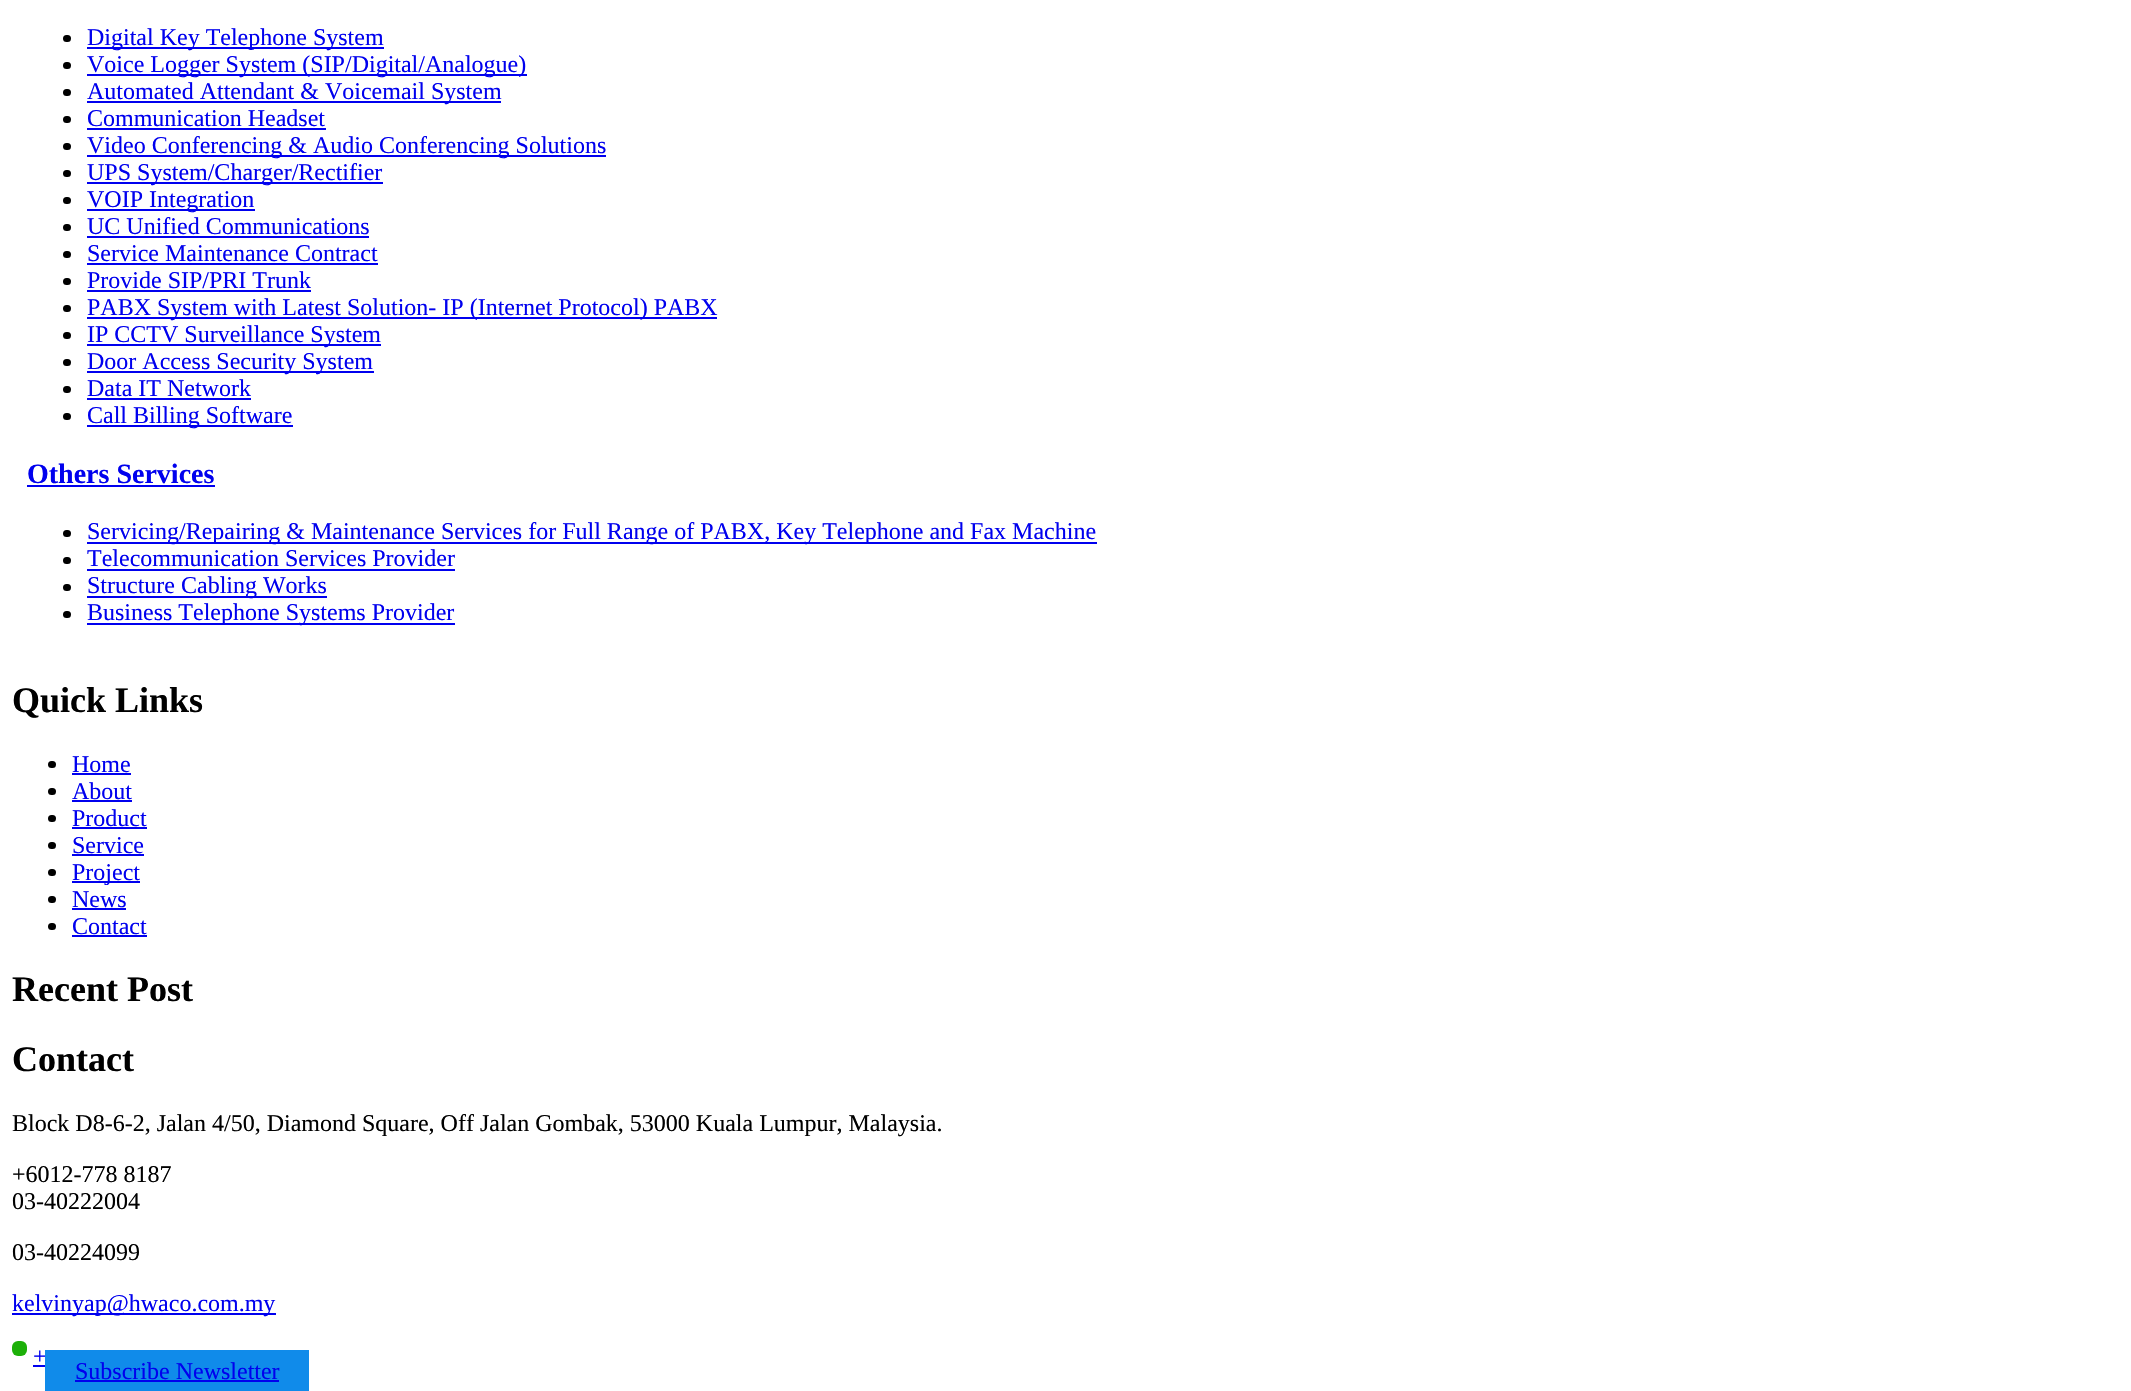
void draw(SkCanvas* canvas) {
	SkPaint paint;
	paint.setAntiAlias(true);
	canvas->clear(0xffffffff);
	paint.setColor(0xff000000);
	canvas->drawRoundRect(SkRect::MakeXYWH(63, 35, 8, 7), 3.5, 3.5, paint);
	paint.setColor(0xff0000ee);
	canvas->drawRect(SkRect::MakeXYWH(87, 47, 297, 2), paint);
	SkFont f1(fontMgr->matchFamilyStyle("Liberation Serif", SkFontStyle::Normal()), 24);
	f1.setSubpixel(true);
	canvas->drawString("Digital Key Telephone System", 87, 45, f1, paint);
	paint.setColor(0xff000000);
	canvas->drawRoundRect(SkRect::MakeXYWH(63, 62, 8, 7), 3.5, 3.5, paint);
	paint.setColor(0xff0000ee);
	canvas->drawRect(SkRect::MakeXYWH(87, 74, 440, 2), paint);
	canvas->drawString("Voice Logger System (SIP/Digital/Analogue)", 87, 72, f1, paint);
	paint.setColor(0xff000000);
	canvas->drawRoundRect(SkRect::MakeXYWH(63, 89, 8, 7), 3.5, 3.5, paint);
	paint.setColor(0xff0000ee);
	canvas->drawRect(SkRect::MakeXYWH(87, 101, 414, 2), paint);
	canvas->drawString("Automated Attendant & Voicemail System", 87, 99, f1, paint);
	paint.setColor(0xff000000);
	canvas->drawRoundRect(SkRect::MakeXYWH(63, 116, 8, 7), 3.5, 3.5, paint);
	paint.setColor(0xff0000ee);
	canvas->drawString("Communication Headset", 87, 126, f1, paint);
	canvas->drawRect(SkRect::MakeXYWH(87, 128, 239, 2), paint);
	paint.setColor(0xff000000);
	canvas->drawRoundRect(SkRect::MakeXYWH(63, 143, 8, 7), 3.5, 3.5, paint);
	paint.setColor(0xff0000ee);
	canvas->drawRect(SkRect::MakeXYWH(87, 155, 519, 2), paint);
	canvas->drawString("Video Conferencing & Audio Conferencing Solutions", 87, 153, f1, paint);
	paint.setColor(0xff000000);
	canvas->drawRoundRect(SkRect::MakeXYWH(63, 170, 8, 7), 3.5, 3.5, paint);
	paint.setColor(0xff0000ee);
	canvas->drawRect(SkRect::MakeXYWH(87, 182, 296, 2), paint);
	canvas->drawString("UPS System/Charger/Rectifier", 87, 180, f1, paint);
	paint.setColor(0xff000000);
	canvas->drawRoundRect(SkRect::MakeXYWH(63, 197, 8, 7), 3.5, 3.5, paint);
	paint.setColor(0xff0000ee);
	canvas->drawRect(SkRect::MakeXYWH(87, 209, 168, 2), paint);
	canvas->drawString("VOIP Integration", 87, 207, f1, paint);
	paint.setColor(0xff000000);
	canvas->drawRoundRect(SkRect::MakeXYWH(63, 224, 8, 7), 3.5, 3.5, paint);
	paint.setColor(0xff0000ee);
	canvas->drawString("UC Unified Communications", 87, 234, f1, paint);
	canvas->drawRect(SkRect::MakeXYWH(87, 236, 282, 2), paint);
	paint.setColor(0xff000000);
	canvas->drawRoundRect(SkRect::MakeXYWH(63, 251, 8, 7), 3.5, 3.5, paint);
	paint.setColor(0xff0000ee);
	canvas->drawString("Service Maintenance Contract", 87, 261, f1, paint);
	canvas->drawRect(SkRect::MakeXYWH(87, 263, 291, 2), paint);
	paint.setColor(0xff000000);
	canvas->drawRoundRect(SkRect::MakeXYWH(63, 278, 8, 7), 3.5, 3.5, paint);
	paint.setColor(0xff0000ee);
	canvas->drawString("Provide SIP/PRI Trunk", 87, 288, f1, paint);
	canvas->drawRect(SkRect::MakeXYWH(87, 290, 224, 2), paint);
	paint.setColor(0xff000000);
	canvas->drawRoundRect(SkRect::MakeXYWH(63, 305, 8, 7), 3.5, 3.5, paint);
	paint.setColor(0xff0000ee);
	canvas->drawRect(SkRect::MakeXYWH(87, 317, 630, 2), paint);
	canvas->drawString("PABX System with Latest Solution- IP (Internet Protocol) PABX", 87, 315, f1, paint);
	paint.setColor(0xff000000);
	canvas->drawRoundRect(SkRect::MakeXYWH(63, 332, 8, 7), 3.5, 3.5, paint);
	paint.setColor(0xff0000ee);
	canvas->drawRect(SkRect::MakeXYWH(87, 344, 294, 2), paint);
	canvas->drawString("IP CCTV Surveillance System", 87, 342, f1, paint);
	paint.setColor(0xff000000);
	canvas->drawRoundRect(SkRect::MakeXYWH(63, 359, 8, 7), 3.5, 3.5, paint);
	paint.setColor(0xff0000ee);
	canvas->drawRect(SkRect::MakeXYWH(87, 371, 287, 2), paint);
	canvas->drawString("Door Access Security System", 87, 369, f1, paint);
	paint.setColor(0xff000000);
	canvas->drawRoundRect(SkRect::MakeXYWH(63, 386, 8, 7), 3.5, 3.5, paint);
	paint.setColor(0xff0000ee);
	canvas->drawString("Data IT Network", 87, 396, f1, paint);
	canvas->drawRect(SkRect::MakeXYWH(87, 398, 164, 2), paint);
	paint.setColor(0xff000000);
	canvas->drawRoundRect(SkRect::MakeXYWH(63, 413, 8, 7), 3.5, 3.5, paint);
	paint.setColor(0xff0000ee);
	canvas->drawRect(SkRect::MakeXYWH(87, 425, 206, 2), paint);
	canvas->drawString("Call Billing Software", 87, 423, f1, paint);
	SkFont f2(fontMgr->matchFamilyStyle("Liberation Serif", SkFontStyle::Bold()), 28);
	f2.setSubpixel(true);
	canvas->drawString("Others Services", 27, 483, f2, paint);
	canvas->drawRect(SkRect::MakeXYWH(27, 485, 188, 2), paint);
	paint.setColor(0xff000000);
	canvas->drawRoundRect(SkRect::MakeXYWH(63, 530, 8, 7), 3.5, 3.5, paint);
	paint.setColor(0xff0000ee);
	canvas->drawRect(SkRect::MakeXYWH(87, 542, 1010, 2), paint);
	canvas->drawString("Servicing/Repairing & Maintenance Services for Full Range of PABX, Key Telephone and Fax Machine", 87, 539, f1, paint);
	paint.setColor(0xff000000);
	canvas->drawRoundRect(SkRect::MakeXYWH(63, 557, 8, 7), 3.5, 3.5, paint);
	paint.setColor(0xff0000ee);
	canvas->drawString("Telecommunication Services Provider", 87, 566, f1, paint);
	canvas->drawRect(SkRect::MakeXYWH(87, 569, 368, 2), paint);
	paint.setColor(0xff000000);
	canvas->drawRoundRect(SkRect::MakeXYWH(63, 584, 8, 7), 3.5, 3.5, paint);
	paint.setColor(0xff0000ee);
	canvas->drawRect(SkRect::MakeXYWH(87, 596, 240, 2), paint);
	canvas->drawString("Structure Cabling Works", 87, 593, f1, paint);
	paint.setColor(0xff000000);
	canvas->drawRoundRect(SkRect::MakeXYWH(63, 611, 8, 7), 3.5, 3.5, paint);
	paint.setColor(0xff0000ee);
	canvas->drawRect(SkRect::MakeXYWH(87, 623, 368, 2), paint);
	canvas->drawString("Business Telephone Systems Provider", 87, 620, f1, paint);
	SkFont f3(fontMgr->matchFamilyStyle("Liberation Serif", SkFontStyle::Bold()), 36);
	f3.setSubpixel(true);
	paint.setColor(0xff000000);
	canvas->drawString("Quick Links", 12, 712, f3, paint);
	canvas->drawRoundRect(SkRect::MakeXYWH(48, 761, 8, 7), 3.5, 3.5, paint);
	paint.setColor(0xff0000ee);
	canvas->drawString("Home", 72, 772, f1, paint);
	canvas->drawRect(SkRect::MakeXYWH(72, 773, 59, 2), paint);
	paint.setColor(0xff000000);
	canvas->drawRoundRect(SkRect::MakeXYWH(48, 788, 8, 7), 3.5, 3.5, paint);
	paint.setColor(0xff0000ee);
	canvas->drawString("About", 72, 799, f1, paint);
	canvas->drawRect(SkRect::MakeXYWH(72, 800, 60, 2), paint);
	paint.setColor(0xff000000);
	canvas->drawRoundRect(SkRect::MakeXYWH(48, 815, 8, 7), 3.5, 3.5, paint);
	paint.setColor(0xff0000ee);
	canvas->drawString("Product", 72, 826, f1, paint);
	canvas->drawRect(SkRect::MakeXYWH(72, 827, 75, 2), paint);
	paint.setColor(0xff000000);
	canvas->drawRoundRect(SkRect::MakeXYWH(48, 842, 8, 7), 3.5, 3.5, paint);
	paint.setColor(0xff0000ee);
	canvas->drawString("Service", 72, 853, f1, paint);
	canvas->drawRect(SkRect::MakeXYWH(72, 854, 72, 2), paint);
	paint.setColor(0xff000000);
	canvas->drawRoundRect(SkRect::MakeXYWH(48, 869, 8, 7), 3.5, 3.5, paint);
	paint.setColor(0xff0000ee);
	canvas->drawRect(SkRect::MakeXYWH(72, 881, 68, 2), paint);
	canvas->drawString("Project", 72, 880, f1, paint);
	paint.setColor(0xff000000);
	canvas->drawRoundRect(SkRect::MakeXYWH(48, 896, 8, 7), 3.5, 3.5, paint);
	paint.setColor(0xff0000ee);
	canvas->drawString("News", 72, 907, f1, paint);
	canvas->drawRect(SkRect::MakeXYWH(72, 908, 54, 2), paint);
	paint.setColor(0xff000000);
	canvas->drawRoundRect(SkRect::MakeXYWH(48, 923, 8, 7), 3.5, 3.5, paint);
	paint.setColor(0xff0000ee);
	canvas->drawString("Contact", 72, 934, f1, paint);
	canvas->drawRect(SkRect::MakeXYWH(72, 935, 75, 2), paint);
	paint.setColor(0xff000000);
	canvas->drawString("Recent Post", 12, 1001, f3, paint);
	canvas->drawString("Contact", 12, 1071, f3, paint);
	canvas->drawString("Block D8-6-2, Jalan 4/50, Diamond Square, Off Jalan Gombak, 53000 Kuala Lumpur, Malaysia.", 12, 1131, f1, paint);
	canvas->drawString("+6012-778 8187", 12, 1182, f1, paint);
	canvas->drawString("03-40222004", 12, 1209, f1, paint);
	canvas->drawString("03-40224099", 12, 1260, f1, paint);
	paint.setColor(0xff0000ee);
	canvas->drawRect(SkRect::MakeXYWH(12, 1313, 264, 2), paint);
	canvas->drawString("kelvinyap@hwaco.com.my", 12, 1311, f1, paint);
	paint.setColor(0xff1db009);
	canvas->drawRoundRect(SkRect::MakeXYWH(12, 1341, 15, 15), 6, 6, paint);
	paint.setColor(0xff0000ee);
	canvas->drawString("+", 33, 1364, f1, paint);
	canvas->drawRect(SkRect::MakeXYWH(33, 1365, 12, 2), paint);
	paint.setColor(0xff108bea);
	canvas->drawRect(SkRect::MakeXYWH(45, 1350, 264, 41), paint);
	paint.setColor(0xff0000ee);
	canvas->drawString("Subscribe Newsletter", 75, 1379, f1, paint);
	canvas->drawRect(SkRect::MakeXYWH(75, 1380, 204, 2), paint);
}
